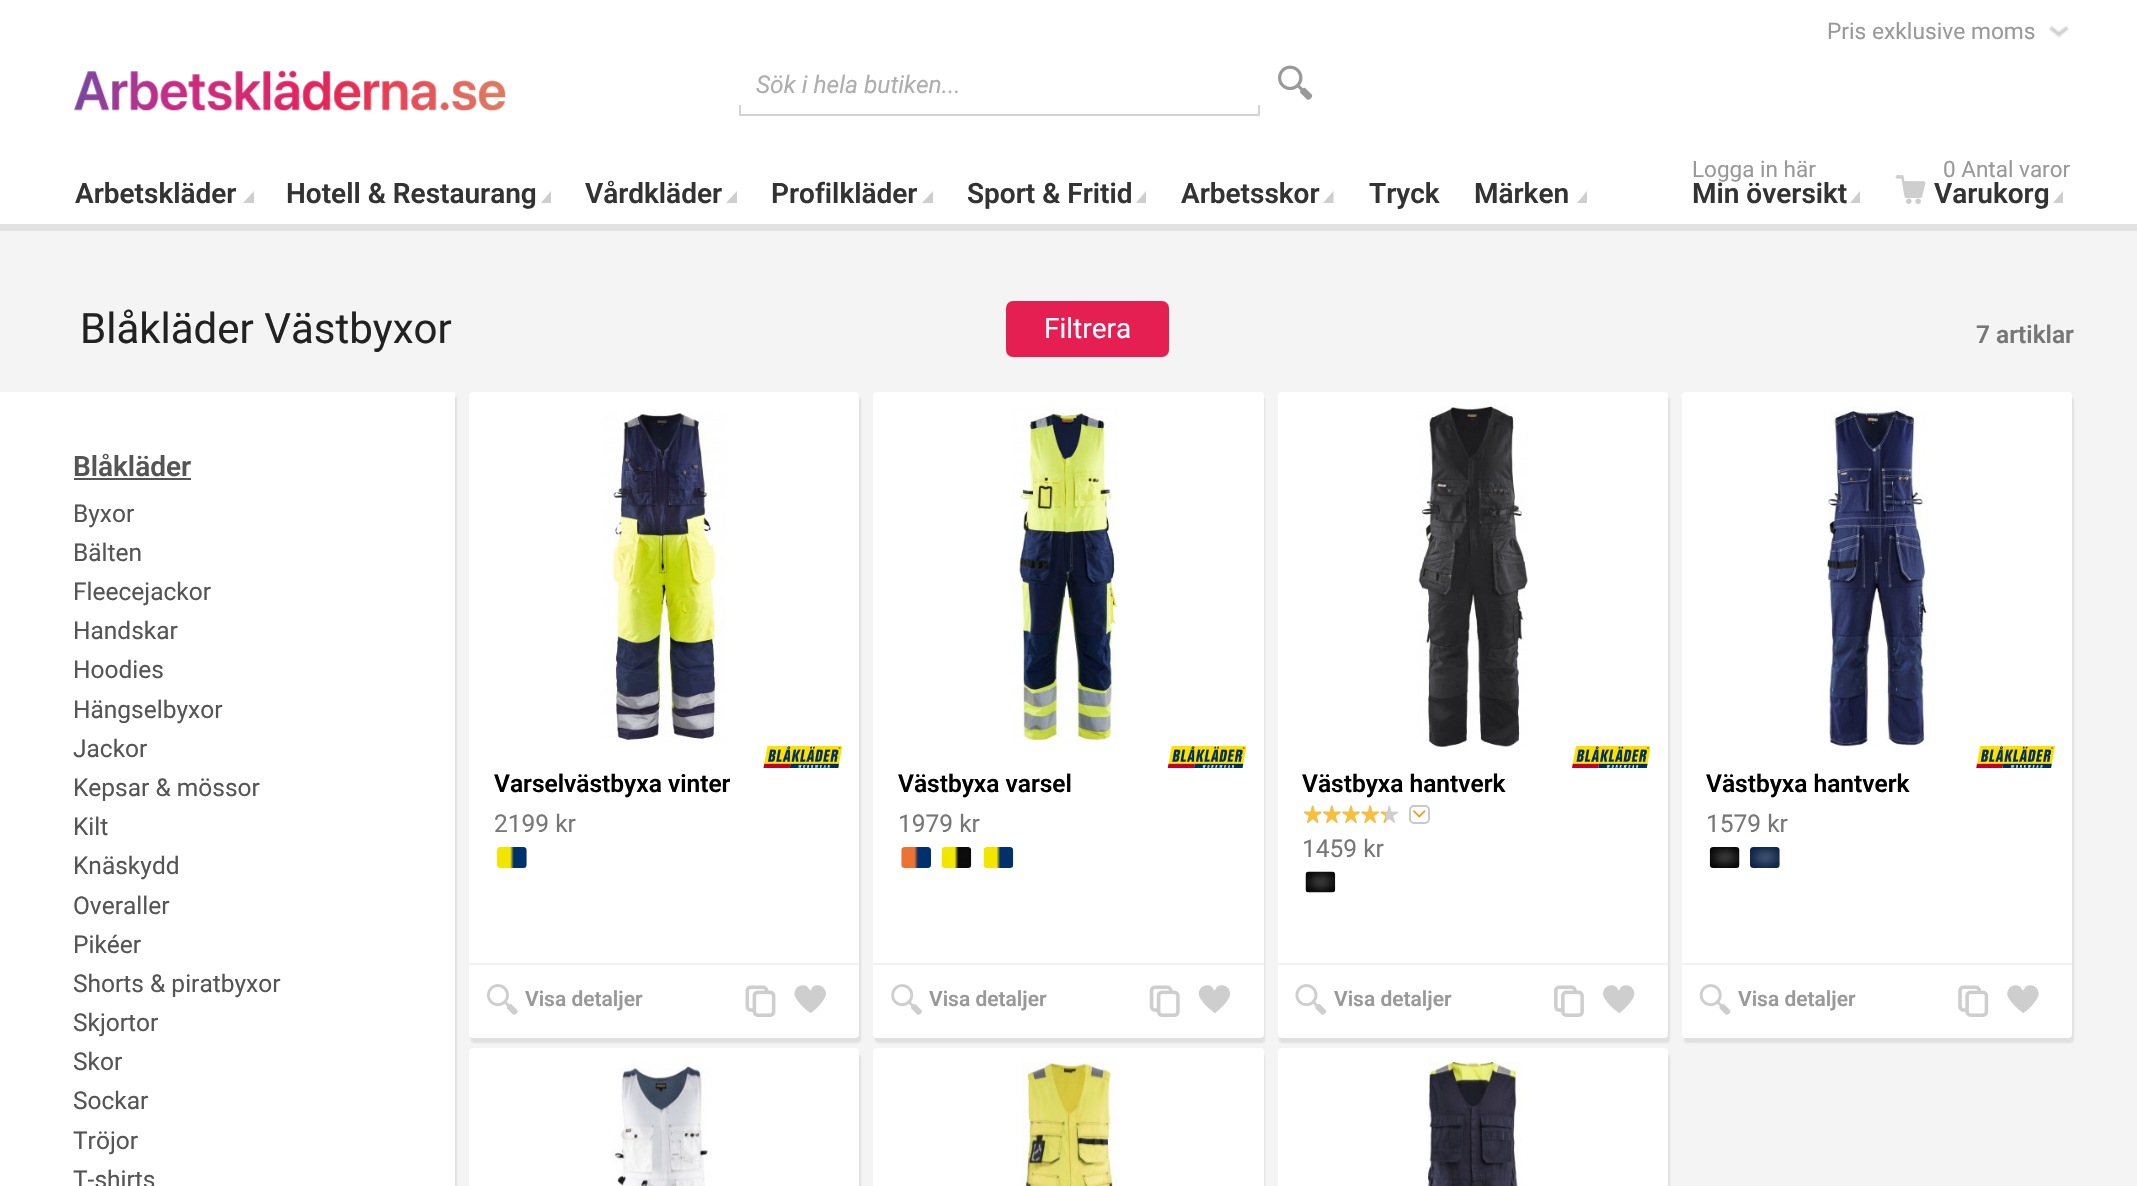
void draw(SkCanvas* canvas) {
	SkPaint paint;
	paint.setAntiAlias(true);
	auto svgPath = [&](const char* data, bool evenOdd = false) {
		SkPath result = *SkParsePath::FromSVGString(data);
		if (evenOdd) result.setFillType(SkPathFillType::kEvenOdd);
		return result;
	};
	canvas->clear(0xffffffff);
	paint.setColor(0xffe2e2e2);
	canvas->drawRect(SkRect::MakeXYWH(0, 224, 2137, 7), paint);
	SkFont f1(fontMgr->matchFamilyStyle("Roboto", SkFontStyle::Normal()), 22.75);
	f1.setSubpixel(true);
	paint.setColor(0xff999999);
	canvas->drawString("Pris exklusive moms", 1827, 39, f1, paint);
	canvas->drawImageRect(SkImages::DeferredFromEncodedData(SkData::MakeFromFileName("img1.png")), SkRect::MakeXYWH(2049, 26, 20, 12), SkSamplingOptions());
	canvas->drawImageRect(SkImages::DeferredFromEncodedData(SkData::MakeFromFileName("img2.png")), SkRect::MakeXYWH(74, 70, 432, 41), SkSamplingOptions());
	SkFont f2(fontMgr->matchFamilyStyle("Roboto", SkFontStyle::Italic()), 24.5);
	f2.setSubpixel(true);
	paint.setColor(0xffaeaeae);
	canvas->drawString("Sök i hela butiken...", 756, 93, f2, paint);
	paint.setColor(0xffd3d3d3);
	canvas->drawRect(SkRect::MakeXYWH(739, 105, 2, 9), paint);
	canvas->drawRect(SkRect::MakeXYWH(1258, 105, 2, 9), paint);
	canvas->drawRect(SkRect::MakeXYWH(739, 114, 521, 2), paint);
	canvas->drawImageRect(SkImages::DeferredFromEncodedData(SkData::MakeFromFileName("img3.png")), SkRect::MakeXYWH(1278, 65, 35, 35), SkSamplingOptions());
	SkFont f3(fontMgr->matchFamilyStyle("Roboto", SkFontStyle(600, SkFontStyle::kNormal_Width, SkFontStyle::kUpright_Slant)), 28);
	f3.setSubpixel(true);
	paint.setColor(0xff333333);
	canvas->drawString("Arbetskläder", 75, 203, f3, paint);
	paint.setColor(0xffcecece);
	canvas->drawPath(svgPath("M254 203H243L254 191Z"), paint);
	paint.setColor(0xff333333);
	canvas->drawString("Hotell & Restaurang", 286, 203, f3, paint);
	paint.setColor(0xffcecece);
	canvas->drawPath(svgPath("M551 203H541L551 191Z"), paint);
	paint.setColor(0xff333333);
	canvas->drawString("Vårdkläder", 585, 203, f3, paint);
	paint.setColor(0xffcecece);
	canvas->drawPath(svgPath("M737 203H726L737 191Z"), paint);
	paint.setColor(0xff333333);
	canvas->drawString("Profilkläder", 771, 203, f3, paint);
	paint.setColor(0xffcecece);
	canvas->drawPath(svgPath("M933 203H922L933 191Z"), paint);
	paint.setColor(0xff333333);
	canvas->drawString("Sport & Fritid", 967, 203, f3, paint);
	paint.setColor(0xffcecece);
	canvas->drawPath(svgPath("M1146 203H1136L1146 191Z"), paint);
	paint.setColor(0xff333333);
	canvas->drawString("Arbetsskor", 1181, 203, f3, paint);
	paint.setColor(0xffcecece);
	canvas->drawPath(svgPath("M1333.5 203H1323L1333.5 191Z"), paint);
	paint.setColor(0xff333333);
	canvas->drawString("Tryck", 1369, 203, f3, paint);
	canvas->drawString("Märken", 1474, 203, f3, paint);
	paint.setColor(0xffcecece);
	canvas->drawPath(svgPath("M1587 203H1577L1587 191Z"), paint);
	SkFont f4(fontMgr->matchFamilyStyle("Roboto", SkFontStyle::Normal()), 22.5);
	f4.setSubpixel(true);
	paint.setColor(0xff999999);
	canvas->drawString("Logga in här", 1692, 177, f4, paint);
	paint.setColor(0xff333333);
	canvas->drawString("Min översikt", 1692, 203, f3, paint);
	paint.setColor(0xffcecece);
	canvas->drawPath(svgPath("M1860 203H1850L1860 191Z"), paint);
	paint.setColor(0xff999999);
	canvas->drawString("0 Antal varor", 1943, 177, f4, paint);
	canvas->drawImageRect(SkImages::DeferredFromEncodedData(SkData::MakeFromFileName("img4.png")), SkRect::MakeXYWH(1895, 175, 31, 29), SkSamplingOptions());
	paint.setColor(0xff333333);
	canvas->drawString("Varukorg", 1934, 203, f3, paint);
	paint.setColor(0xffcecece);
	canvas->drawPath(svgPath("M2063 203H2053L2063 191Z"), paint);
	paint.setColor(0xfff4f4f4);
	canvas->drawRect(SkRect::MakeXYWH(0, 231, 2137, 955), paint);
	SkFont f5(fontMgr->matchFamilyStyle("Roboto", SkFontStyle::Normal()), 42);
	f5.setSubpixel(true);
	paint.setColor(0xff222222);
	canvas->drawString("Blåkläder Västbyxor", 80, 343, f5, paint);
	paint.setColor(0xffe51f52);
	canvas->drawRoundRect(SkRect::MakeXYWH(1006, 301, 163, 56), 7, 7, paint);
	SkFont f6(fontMgr->matchFamilyStyle("Roboto", SkFontStyle::Normal()), 28);
	f6.setSubpixel(true);
	paint.setColor(0xffffffff);
	canvas->drawString("Filtrera", 1044, 338, f6, paint);
	SkFont f7(fontMgr->matchFamilyStyle("Roboto", SkFontStyle(600, SkFontStyle::kNormal_Width, SkFontStyle::kUpright_Slant)), 24.5);
	f7.setSubpixel(true);
	paint.setColor(0xff777777);
	canvas->drawString("7 artiklar", 1976, 343, f7, paint);
	paint.setColor(0x1a323232);
	paint.setMaskFilter(SkMaskFilter::MakeBlur(kNormal_SkBlurStyle, 1));
	canvas->drawRect(SkRect::MakeXYWH(2, 397, 455, 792), paint);
	paint.setMaskFilter(nullptr);
	paint.setColor(0xffffffff);
	canvas->drawRect(SkRect::MakeXYWH(0, 392, 455, 794), paint);
	paint.setColor(0xff555555);
	canvas->drawString("Blåkläder", 73, 476, f3, paint);
	canvas->drawRect(SkRect::MakeXYWH(74, 478, 117, 2), paint);
	SkFont f8(fontMgr->matchFamilyStyle("Roboto", SkFontStyle::Normal()), 24.5);
	f8.setSubpixel(true);
	canvas->drawString("Byxor", 73, 522, f8, paint);
	canvas->drawString("Bälten", 73, 561, f8, paint);
	canvas->drawString("Fleecejackor", 73, 600, f8, paint);
	canvas->drawString("Handskar", 73, 639, f8, paint);
	canvas->drawString("Hoodies", 73, 678, f8, paint);
	canvas->drawString("Hängselbyxor", 73, 718, f8, paint);
	canvas->drawString("Jackor", 73, 757, f8, paint);
	canvas->drawString("Kepsar & mössor", 73, 796, f8, paint);
	canvas->drawString("Kilt", 73, 835, f8, paint);
	canvas->drawString("Knäskydd", 73, 874, f8, paint);
	canvas->drawString("Overaller", 73, 914, f8, paint);
	canvas->drawString("Pikéer", 73, 953, f8, paint);
	canvas->drawString("Shorts & piratbyxor", 73, 992, f8, paint);
	canvas->drawString("Skjortor", 73, 1031, f8, paint);
	canvas->drawString("Skor", 73, 1070, f8, paint);
	canvas->drawString("Sockar", 73, 1109, f8, paint);
	canvas->drawString("Tröjor", 73, 1149, f8, paint);
	canvas->drawString("T-shirts", 73, 1188, f8, paint);
	paint.setColor(0x1a323232);
	paint.setMaskFilter(SkMaskFilter::MakeBlur(kNormal_SkBlurStyle, 1));
	canvas->drawRoundRect(SkRect::MakeXYWH(471, 397, 390, 646), 4, 4, paint);
	paint.setMaskFilter(nullptr);
	paint.setColor(0xffffffff);
	canvas->drawRoundRect(SkRect::MakeXYWH(469, 392, 390, 646), 4, 4, paint);
	canvas->drawImageRect(SkImages::DeferredFromEncodedData(SkData::MakeFromFileName("img5.png")), SkRect::MakeXYWH(604, 412, 122, 332), SkSamplingOptions());
	canvas->drawImageRect(SkImages::DeferredFromEncodedData(SkData::MakeFromFileName("img6.png")), SkRect::MakeXYWH(763, 746, 79, 22), SkSamplingOptions());
	paint.setColor(0xff000000);
	canvas->drawString("Varselvästbyxa vinter", 494, 792, f7, paint);
	paint.setColor(0xff777777);
	canvas->drawString("2199 kr", 494, 832, f8, paint);
	canvas->drawImageRect(SkImages::DeferredFromEncodedData(SkData::MakeFromFileName("img7.png")), SkRect::MakeXYWH(497, 847, 30, 21), SkSamplingOptions());
	paint.setColor(0xfff2f2f2);
	canvas->drawRect(SkRect::MakeXYWH(469, 963, 390, 2), paint);
	canvas->drawImageRect(SkImages::DeferredFromEncodedData(SkData::MakeFromFileName("img8.png")), SkRect::MakeXYWH(487, 984, 31, 31), SkSamplingOptions());
	SkFont f9(fontMgr->matchFamilyStyle("Roboto", SkFontStyle(600, SkFontStyle::kNormal_Width, SkFontStyle::kUpright_Slant)), 21);
	f9.setSubpixel(true);
	paint.setColor(0xff999999);
	canvas->drawString("Visa detaljer", 525, 1006, f9, paint);
	canvas->drawImageRect(SkImages::DeferredFromEncodedData(SkData::MakeFromFileName("img9.png")), SkRect::MakeXYWH(745, 985, 31, 32), SkSamplingOptions());
	canvas->drawImageRect(SkImages::DeferredFromEncodedData(SkData::MakeFromFileName("img10.png")), SkRect::MakeXYWH(794, 985, 32, 28), SkSamplingOptions());
	paint.setColor(0x1a323232);
	paint.setMaskFilter(SkMaskFilter::MakeBlur(kNormal_SkBlurStyle, 1));
	canvas->drawRoundRect(SkRect::MakeXYWH(875, 397, 390, 646), 4, 4, paint);
	paint.setMaskFilter(nullptr);
	paint.setColor(0xffffffff);
	canvas->drawRoundRect(SkRect::MakeXYWH(873, 392, 391, 646), 4, 4, paint);
	canvas->drawImageRect(SkImages::DeferredFromEncodedData(SkData::MakeFromFileName("img11.png")), SkRect::MakeXYWH(1012, 406, 106, 339), SkSamplingOptions());
	canvas->drawImageRect(SkImages::DeferredFromEncodedData(SkData::MakeFromFileName("img12.png")), SkRect::MakeXYWH(1167, 746, 79, 22), SkSamplingOptions());
	paint.setColor(0xff000000);
	canvas->drawString("Västbyxa varsel", 898, 792, f7, paint);
	paint.setColor(0xff777777);
	canvas->drawString("1979 kr", 898, 832, f8, paint);
	canvas->drawImageRect(SkImages::DeferredFromEncodedData(SkData::MakeFromFileName("img13.png")), SkRect::MakeXYWH(901, 847, 30, 21), SkSamplingOptions());
	canvas->drawImageRect(SkImages::DeferredFromEncodedData(SkData::MakeFromFileName("img14.png")), SkRect::MakeXYWH(941, 847, 31, 21), SkSamplingOptions());
	canvas->drawImageRect(SkImages::DeferredFromEncodedData(SkData::MakeFromFileName("img15.png")), SkRect::MakeXYWH(983, 847, 31, 21), SkSamplingOptions());
	paint.setColor(0xfff2f2f2);
	canvas->drawRect(SkRect::MakeXYWH(873, 963, 391, 2), paint);
	canvas->drawImageRect(SkImages::DeferredFromEncodedData(SkData::MakeFromFileName("img16.png")), SkRect::MakeXYWH(891, 984, 31, 31), SkSamplingOptions());
	paint.setColor(0xff999999);
	canvas->drawString("Visa detaljer", 929, 1006, f9, paint);
	canvas->drawImageRect(SkImages::DeferredFromEncodedData(SkData::MakeFromFileName("img17.png")), SkRect::MakeXYWH(1149, 985, 31, 32), SkSamplingOptions());
	canvas->drawImageRect(SkImages::DeferredFromEncodedData(SkData::MakeFromFileName("img18.png")), SkRect::MakeXYWH(1198, 985, 33, 28), SkSamplingOptions());
	paint.setColor(0x1a323232);
	paint.setMaskFilter(SkMaskFilter::MakeBlur(kNormal_SkBlurStyle, 1));
	canvas->drawRoundRect(SkRect::MakeXYWH(1279, 397, 391, 646), 4, 4, paint);
	paint.setMaskFilter(nullptr);
	paint.setColor(0xffffffff);
	canvas->drawRoundRect(SkRect::MakeXYWH(1278, 392, 390, 646), 4, 4, paint);
	canvas->drawImageRect(SkImages::DeferredFromEncodedData(SkData::MakeFromFileName("img19.png")), SkRect::MakeXYWH(1417, 406, 111, 342), SkSamplingOptions());
	canvas->drawImageRect(SkImages::DeferredFromEncodedData(SkData::MakeFromFileName("img20.png")), SkRect::MakeXYWH(1572, 746, 78, 22), SkSamplingOptions());
	paint.setColor(0xff000000);
	canvas->drawString("Västbyxa hantverk", 1302, 792, f7, paint);
	canvas->drawImageRect(SkImages::DeferredFromEncodedData(SkData::MakeFromFileName("img21.png")), SkRect::MakeXYWH(1304, 805, 94, 18), SkSamplingOptions());
	canvas->drawImageRect(SkImages::DeferredFromEncodedData(SkData::MakeFromFileName("img22.png")), SkRect::MakeXYWH(1304, 805, 82, 18), SkSamplingOptions());
	paint.setStroke(true);
	paint.setStrokeWidth(2);
	paint.setColor(0xffc9c9c9);
	canvas->drawRoundRect(SkRect::MakeXYWH(1410, 806, 19, 17), 4, 4, paint);
	paint.setStroke(false);
	paint.setColor(0xffef9f20);
	canvas->drawPath(svgPath("M1420.5 816.5L1419 817.5L1413 811.5L1414 810Z"), paint);
	canvas->drawPath(svgPath("M1424.5 810L1425.5 811.5L1419.5 817.5L1418 816.5Z"), paint);
	paint.setColor(0xff777777);
	canvas->drawString("1459 kr", 1302, 857, f8, paint);
	canvas->drawImageRect(SkImages::DeferredFromEncodedData(SkData::MakeFromFileName("img23.png")), SkRect::MakeXYWH(1305, 871, 31, 22), SkSamplingOptions());
	paint.setColor(0xfff2f2f2);
	canvas->drawRect(SkRect::MakeXYWH(1278, 963, 390, 2), paint);
	canvas->drawImageRect(SkImages::DeferredFromEncodedData(SkData::MakeFromFileName("img24.png")), SkRect::MakeXYWH(1295, 984, 32, 31), SkSamplingOptions());
	paint.setColor(0xff999999);
	canvas->drawString("Visa detaljer", 1334, 1006, f9, paint);
	canvas->drawImageRect(SkImages::DeferredFromEncodedData(SkData::MakeFromFileName("img25.png")), SkRect::MakeXYWH(1554, 985, 30, 32), SkSamplingOptions());
	canvas->drawImageRect(SkImages::DeferredFromEncodedData(SkData::MakeFromFileName("img26.png")), SkRect::MakeXYWH(1603, 985, 32, 28), SkSamplingOptions());
	paint.setColor(0x1a323232);
	paint.setMaskFilter(SkMaskFilter::MakeBlur(kNormal_SkBlurStyle, 1));
	canvas->drawRoundRect(SkRect::MakeXYWH(1684, 397, 390, 646), 4, 4, paint);
	paint.setMaskFilter(nullptr);
	paint.setColor(0xffffffff);
	canvas->drawRoundRect(SkRect::MakeXYWH(1682, 392, 390, 646), 4, 4, paint);
	canvas->drawImageRect(SkImages::DeferredFromEncodedData(SkData::MakeFromFileName("img27.png")), SkRect::MakeXYWH(1820, 406, 108, 341), SkSamplingOptions());
	canvas->drawImageRect(SkImages::DeferredFromEncodedData(SkData::MakeFromFileName("img28.png")), SkRect::MakeXYWH(1976, 746, 79, 22), SkSamplingOptions());
	paint.setColor(0xff000000);
	canvas->drawString("Västbyxa hantverk", 1706, 792, f7, paint);
	paint.setColor(0xff777777);
	canvas->drawString("1579 kr", 1706, 832, f8, paint);
	canvas->drawImageRect(SkImages::DeferredFromEncodedData(SkData::MakeFromFileName("img29.png")), SkRect::MakeXYWH(1709, 847, 31, 21), SkSamplingOptions());
	canvas->drawImageRect(SkImages::DeferredFromEncodedData(SkData::MakeFromFileName("img30.png")), SkRect::MakeXYWH(1750, 847, 30, 21), SkSamplingOptions());
	paint.setColor(0xfff2f2f2);
	canvas->drawRect(SkRect::MakeXYWH(1682, 963, 390, 2), paint);
	canvas->drawImageRect(SkImages::DeferredFromEncodedData(SkData::MakeFromFileName("img31.png")), SkRect::MakeXYWH(1699, 984, 32, 31), SkSamplingOptions());
	paint.setColor(0xff999999);
	canvas->drawString("Visa detaljer", 1738, 1006, f9, paint);
	canvas->drawImageRect(SkImages::DeferredFromEncodedData(SkData::MakeFromFileName("img32.png")), SkRect::MakeXYWH(1958, 985, 31, 32), SkSamplingOptions());
	canvas->drawImageRect(SkImages::DeferredFromEncodedData(SkData::MakeFromFileName("img33.png")), SkRect::MakeXYWH(2007, 985, 32, 28), SkSamplingOptions());
	paint.setColor(0x1a323232);
	paint.setMaskFilter(SkMaskFilter::MakeBlur(kNormal_SkBlurStyle, 1));
	canvas->drawRoundRect(SkRect::MakeXYWH(471, 1054, 390, 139), 4, 4, paint);
	paint.setMaskFilter(nullptr);
	paint.setColor(0xffffffff);
	canvas->drawRoundRect(SkRect::MakeXYWH(469, 1048, 390, 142), 4, 4, paint);
	canvas->drawImageRect(SkImages::DeferredFromEncodedData(SkData::MakeFromFileName("img34.png")), SkRect::MakeXYWH(611, 1062, 100, 124), SkSamplingOptions());
	paint.setColor(0x1a323232);
	paint.setMaskFilter(SkMaskFilter::MakeBlur(kNormal_SkBlurStyle, 1));
	canvas->drawRoundRect(SkRect::MakeXYWH(875, 1054, 390, 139), 4, 4, paint);
	paint.setMaskFilter(nullptr);
	paint.setColor(0xffffffff);
	canvas->drawRoundRect(SkRect::MakeXYWH(873, 1048, 391, 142), 4, 4, paint);
	canvas->drawImageRect(SkImages::DeferredFromEncodedData(SkData::MakeFromFileName("img35.png")), SkRect::MakeXYWH(1021, 1062, 96, 124), SkSamplingOptions());
	paint.setColor(0x1a323232);
	paint.setMaskFilter(SkMaskFilter::MakeBlur(kNormal_SkBlurStyle, 1));
	canvas->drawRoundRect(SkRect::MakeXYWH(1279, 1054, 391, 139), 4, 4, paint);
	paint.setMaskFilter(nullptr);
	paint.setColor(0xffffffff);
	canvas->drawRoundRect(SkRect::MakeXYWH(1278, 1048, 390, 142), 4, 4, paint);
	canvas->drawImageRect(SkImages::DeferredFromEncodedData(SkData::MakeFromFileName("img36.png")), SkRect::MakeXYWH(1426, 1062, 95, 124), SkSamplingOptions());
}
